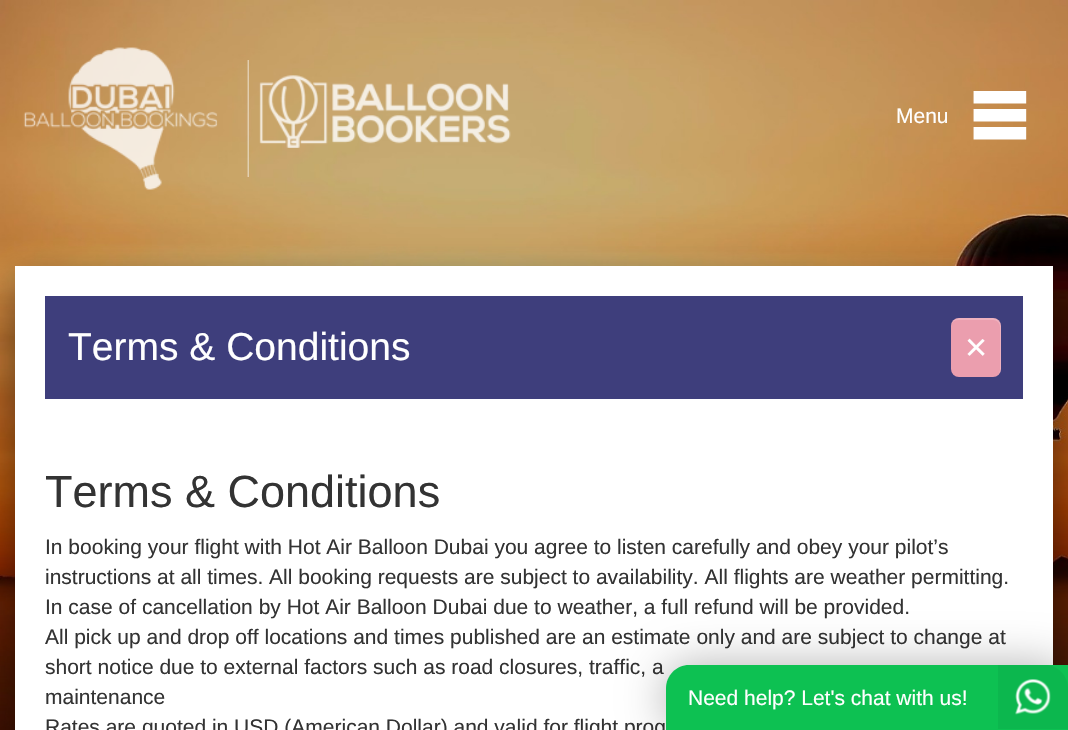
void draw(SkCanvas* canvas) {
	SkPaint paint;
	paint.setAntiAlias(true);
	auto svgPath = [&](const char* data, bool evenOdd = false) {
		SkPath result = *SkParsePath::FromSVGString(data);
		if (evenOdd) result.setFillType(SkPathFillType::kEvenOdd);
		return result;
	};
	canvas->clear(0xffffffff);
	canvas->drawImageRect(SkImages::DeferredFromEncodedData(SkData::MakeFromFileName("img1.png")), SkRect::MakeXYWH(0, 0, 1068, 730), SkSamplingOptions());
	canvas->drawImageRect(SkImages::DeferredFromEncodedData(SkData::MakeFromFileName("img2.png")), SkRect::MakeXYWH(23, 47, 195, 143), SkSamplingOptions());
	canvas->drawImageRect(SkImages::DeferredFromEncodedData(SkData::MakeFromFileName("img3.png")), SkRect::MakeXYWH(247, 60, 2, 117), SkSamplingOptions());
	canvas->drawImageRect(SkImages::DeferredFromEncodedData(SkData::MakeFromFileName("img4.png")), SkRect::MakeXYWH(247, 60, 2, 117), SkSamplingOptions());
	canvas->drawImageRect(SkImages::DeferredFromEncodedData(SkData::MakeFromFileName("img5.png")), SkRect::MakeXYWH(259, 75, 252, 73), SkSamplingOptions());
	canvas->drawImageRect(SkImages::DeferredFromEncodedData(SkData::MakeFromFileName("img6.png")), SkRect::MakeXYWH(973, 91, 54, 49), SkSamplingOptions());
	SkFont f1(fontMgr->matchFamilyStyle("Liberation Sans", SkFontStyle::Normal()), 21);
	f1.setSubpixel(true);
	paint.setColor(0xffffffff);
	canvas->drawString("Menu", 896, 123, f1, paint);
	paint.setColor(0x80000000);
	paint.setMaskFilter(SkMaskFilter::MakeBlur(kNormal_SkBlurStyle, 19));
	canvas->drawRect(SkRect::MakeXYWH(15, 281, 1038, 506), paint);
	paint.setMaskFilter(nullptr);
	paint.setColor(0xffffffff);
	canvas->drawRect(SkRect::MakeXYWH(15, 266, 1038, 464), paint);
	paint.setColor(0xff3e3e7c);
	canvas->drawRect(SkRect::MakeXYWH(45, 296, 978, 103), paint);
	SkFont f2(fontMgr->matchFamilyStyle("Liberation Sans", SkFontStyle::Normal()), 39);
	f2.setSubpixel(true);
	paint.setColor(0xffffffff);
	canvas->drawString("Terms & Conditions", 68, 360, f2, paint);
	paint.setColor(0xffeb9eae);
	canvas->drawRoundRect(SkRect::MakeXYWH(951, 318, 50, 59), 8, 8, paint);
	paint.setColor(0x33ffffff);
	canvas->drawPath(svgPath("M958 320H993C997 320 1000 323 1000 327V370L999 374C1000 373 1001 371 1001 369V326C1001 322 997 318 993 318H959C955 318 951 322 951 326V327C951 323 954 320 958 320Z"), paint);
	SkFont f3(fontMgr->matchFamilyStyle("Liberation Sans", SkFontStyle::Normal()), 38);
	f3.setSubpixel(true);
	paint.setColor(0xffffffff);
	canvas->drawString("×", 965, 360, f3, paint);
	SkFont f4(fontMgr->matchFamilyStyle("Liberation Sans", SkFontStyle::Normal()), 45);
	f4.setSubpixel(true);
	paint.setColor(0xff333333);
	canvas->drawString("Terms & Conditions", 45, 507, f4, paint);
	canvas->drawString("In booking your flight with Hot Air Balloon Dubai you agree to listen carefully and obey your pilot’s", 45, 554, f1, paint);
	canvas->drawString("instructions at all times. All booking requests are subject to availability. All flights are weather permitting.", 45, 584, f1, paint);
	canvas->drawString("In case of cancellation by Hot Air Balloon Dubai due to weather, a full refund will be provided.", 45, 614, f1, paint);
	canvas->drawString("All pick up and drop off locations and times published are an estimate only and are subject to change at", 45, 644, f1, paint);
	canvas->drawString("short notice due to external factors such as road closures, traffic, a", 45, 674, f1, paint);
	canvas->drawString("maintenance", 45, 704, f1, paint);
	canvas->drawString("Rates are quoted in USD (American Dollar) and valid for flight prog", 45, 734, f1, paint);
	paint.setColor(0x4d000000);
	paint.setMaskFilter(SkMaskFilter::MakeBlur(kNormal_SkBlurStyle, 22.5));
	canvas->drawRoundRect(SkRect::MakeXYWH(666, 665, 402, 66), 23, 23, paint);
	paint.setMaskFilter(nullptr);
	paint.setColor(0xff0dc152);
	canvas->drawPath(svgPath("M689 665H1068V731H666V688C666 675.5 676.5 665 689 665Z"), paint);
	paint.setColor(0xffffffff);
	canvas->drawString("Need help? Let's chat with us!", 688, 705, f1, paint);
	paint.setColor(0xff0cb74e);
	canvas->drawPath(svgPath("M998 665H1045C1057.5 665 1068 675.5 1068 688V729H998Z"), paint);
	canvas->drawImageRect(SkImages::DeferredFromEncodedData(SkData::MakeFromFileName("img7.png")), SkRect::MakeXYWH(1015, 679, 36, 36), SkSamplingOptions());
}
